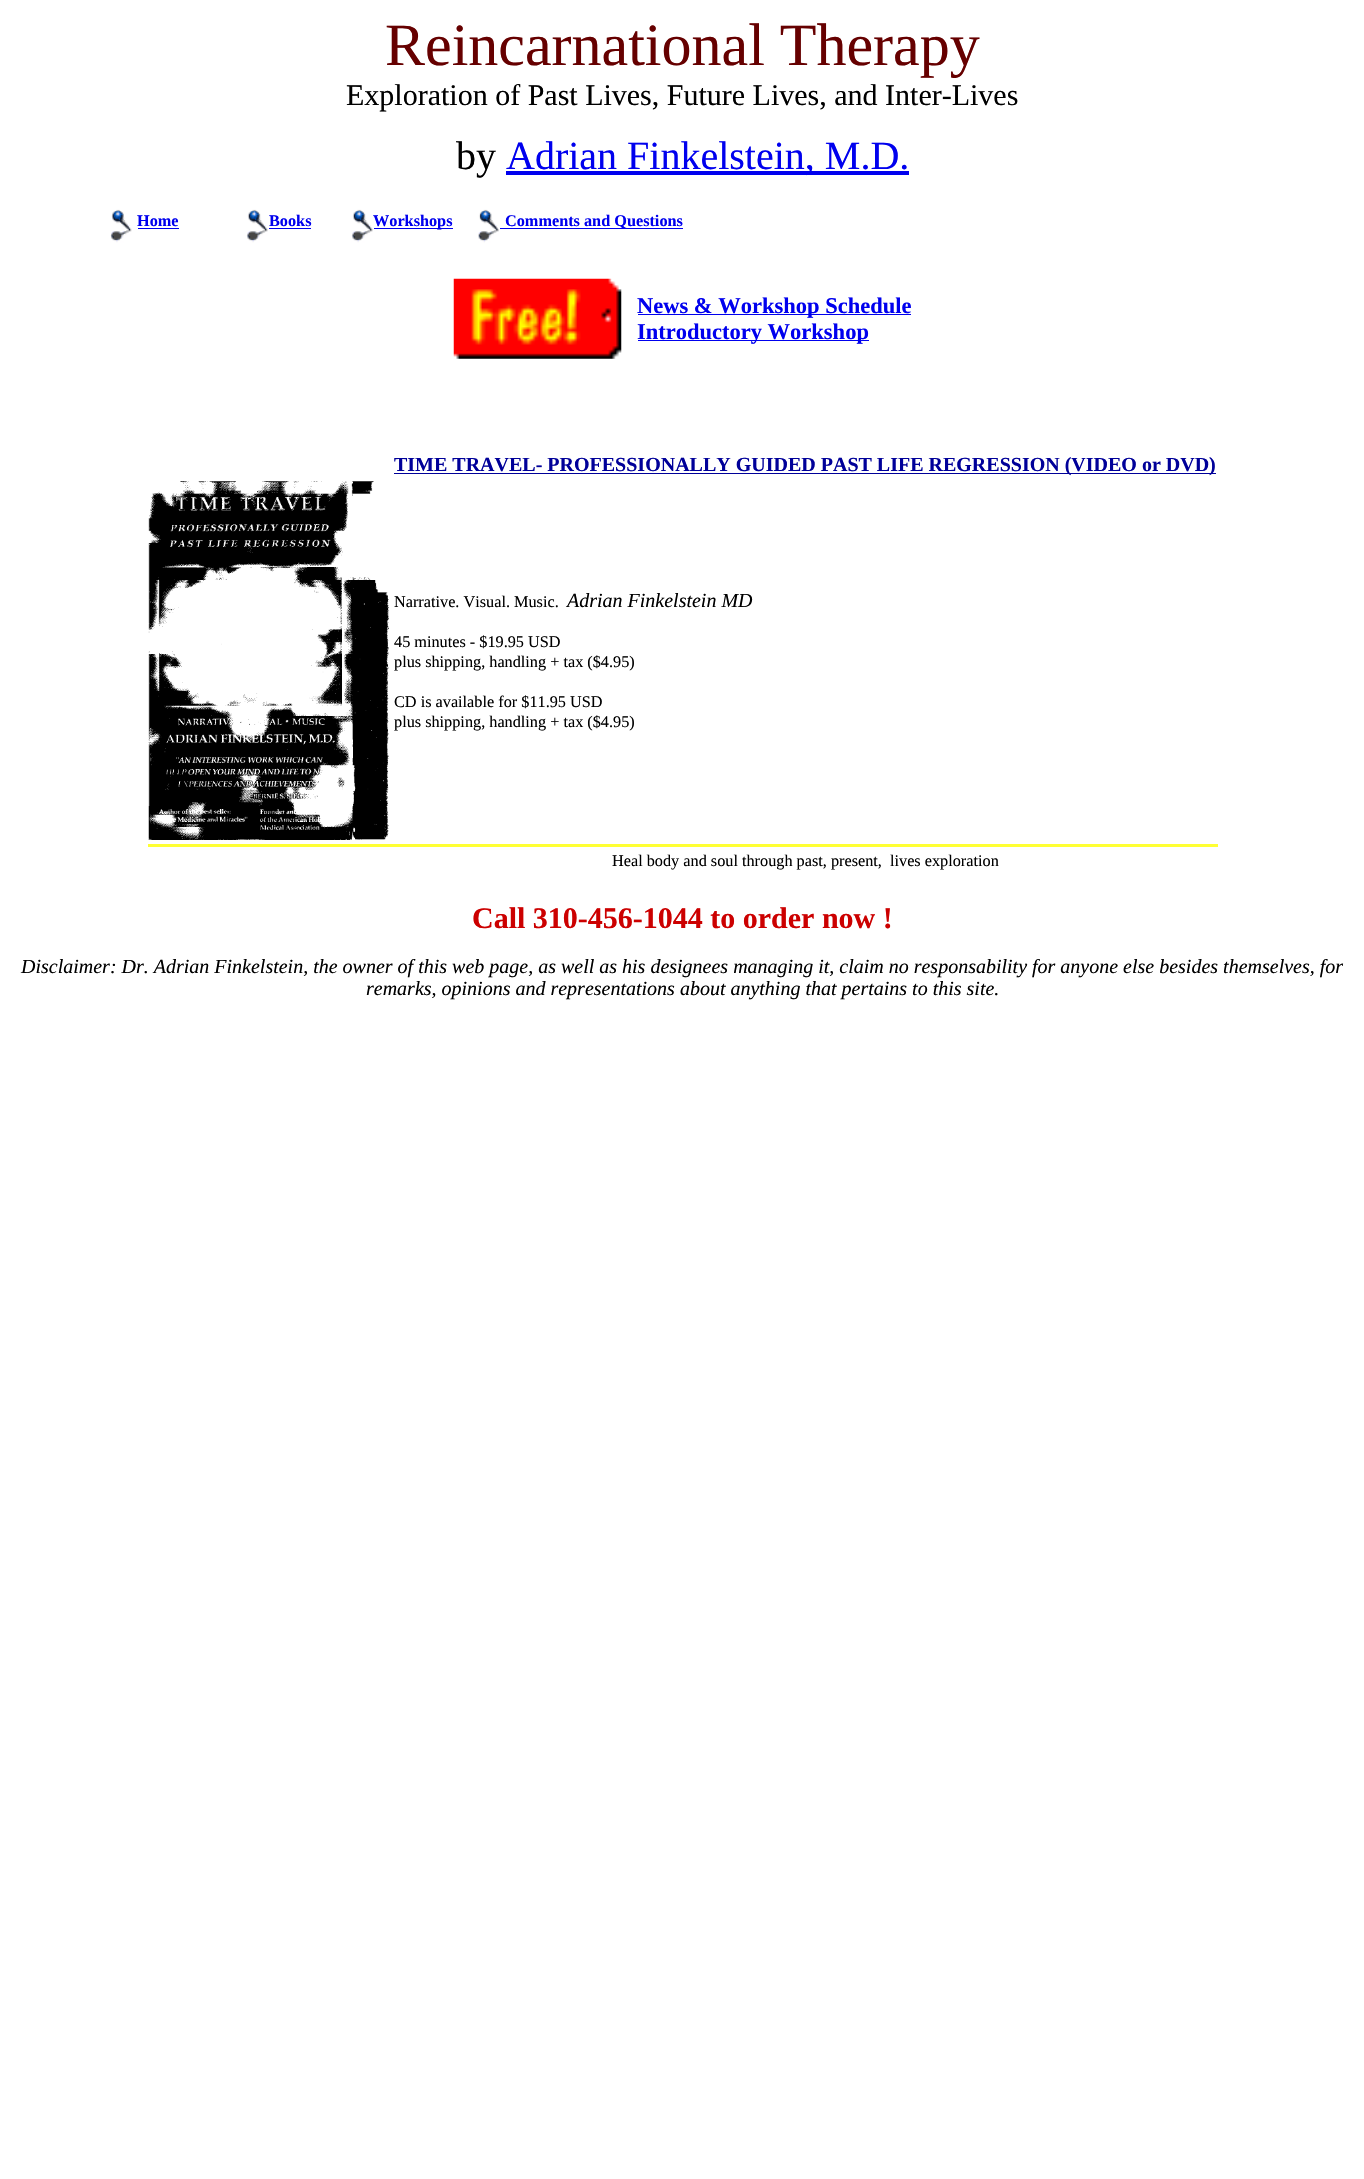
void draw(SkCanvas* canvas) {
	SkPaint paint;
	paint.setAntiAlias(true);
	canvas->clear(0xffffffff);
	SkFont f1(fontMgr->matchFamilyStyle("Liberation Serif", SkFontStyle::Normal()), 60);
	f1.setSubpixel(true);
	paint.setColor(0xff660000);
	canvas->drawString("Reincarnational Therapy", 385, 65, f1, paint);
	SkFont f2(fontMgr->matchFamilyStyle("Liberation Serif", SkFontStyle::Normal()), 30);
	f2.setSubpixel(true);
	paint.setColor(0xff000000);
	canvas->drawString("Exploration of Past Lives, Future Lives, and Inter-Lives", 346, 105, f2, paint);
	SkFont f3(fontMgr->matchFamilyStyle("Liberation Serif", SkFontStyle::Normal()), 40);
	f3.setSubpixel(true);
	canvas->drawString("by", 456, 169, f3, paint);
	paint.setColor(0xff0000ee);
	canvas->drawRect(SkRect::MakeXYWH(506, 171, 403, 4), paint);
	canvas->drawString("Adrian Finkelstein, M.D.", 506, 169, f3, paint);
	canvas->drawImageRect(SkImages::DeferredFromEncodedData(SkData::MakeFromFileName("img1.png")), SkRect::MakeXYWH(110, 209, 22, 34), SkSamplingOptions());
	SkFont f4(fontMgr->matchFamilyStyle("Liberation Serif", SkFontStyle::Bold()), 16.25);
	f4.setSubpixel(true);
	canvas->drawString("Home", 137, 226, f4, paint);
	canvas->drawRect(SkRect::MakeXYWH(138, 228, 41, 1), paint);
	canvas->drawImageRect(SkImages::DeferredFromEncodedData(SkData::MakeFromFileName("img2.png")), SkRect::MakeXYWH(246, 209, 22, 34), SkSamplingOptions());
	canvas->drawString("Books", 269, 226, f4, paint);
	canvas->drawRect(SkRect::MakeXYWH(269, 228, 42, 1), paint);
	canvas->drawImageRect(SkImages::DeferredFromEncodedData(SkData::MakeFromFileName("img2.png")), SkRect::MakeXYWH(351, 209, 22, 34), SkSamplingOptions());
	canvas->drawRect(SkRect::MakeXYWH(374, 228, 79, 1), paint);
	canvas->drawString("Workshops", 373, 226, f4, paint);
	canvas->drawImageRect(SkImages::DeferredFromEncodedData(SkData::MakeFromFileName("img3.png")), SkRect::MakeXYWH(478, 209, 21, 34), SkSamplingOptions());
	canvas->drawRect(SkRect::MakeXYWH(500, 228, 183, 1), paint);
	canvas->drawString("Comments and Questions", 505, 226, f4, paint);
	canvas->drawImageRect(SkImages::DeferredFromEncodedData(SkData::MakeFromFileName("img4.png")), SkRect::MakeXYWH(453, 278, 169, 81), SkSamplingOptions());
	canvas->drawRect(SkRect::MakeXYWH(638, 314, 273, 1), paint);
	SkFont f5(fontMgr->matchFamilyStyle("Liberation Serif", SkFontStyle::Bold()), 22.5);
	f5.setSubpixel(true);
	canvas->drawString("News & Workshop Schedule", 637, 313, f5, paint);
	canvas->drawRect(SkRect::MakeXYWH(638, 340, 231, 1), paint);
	canvas->drawString("Introductory Workshop", 637, 339, f5, paint);
	paint.setColor(0xff000099);
	canvas->drawRect(SkRect::MakeXYWH(394, 473, 822, 1), paint);
	SkFont f6(fontMgr->matchFamilyStyle("Liberation Serif", SkFontStyle::Bold()), 20);
	f6.setSubpixel(true);
	canvas->drawString("TIME TRAVEL- PROFESSIONALLY GUIDED PAST LIFE REGRESSION (VIDEO or DVD)", 394, 471, f6, paint);
	canvas->drawImageRect(SkImages::DeferredFromEncodedData(SkData::MakeFromFileName("img5.png")), SkRect::MakeXYWH(148, 481, 241, 359), SkSamplingOptions());
	SkFont f7(fontMgr->matchFamilyStyle("Liberation Serif", SkFontStyle::Normal()), 16.25);
	f7.setSubpixel(true);
	paint.setColor(0xff000000);
	canvas->drawString("Narrative. Visual. Music.", 394, 607, f7, paint);
	SkFont f8(fontMgr->matchFamilyStyle("Liberation Serif", SkFontStyle::Italic()), 20);
	f8.setSubpixel(true);
	canvas->drawString("Adrian Finkelstein MD", 567, 607, f8, paint);
	canvas->drawString("45 minutes - $19.95 USD", 394, 647, f7, paint);
	canvas->drawString("plus shipping, handling + tax ($4.95)", 394, 667, f7, paint);
	canvas->drawString("CD is available for $11.95 USD", 394, 707, f7, paint);
	canvas->drawString("plus shipping, handling + tax ($4.95)", 394, 727, f7, paint);
	paint.setColor(0xffffff33);
	canvas->drawRect(SkRect::MakeXYWH(148, 844, 1070, 3), paint);
	paint.setColor(0xff000000);
	canvas->drawString("Heal body and soul through past, present,", 612, 866, f7, paint);
	canvas->drawString("lives exploration", 890, 866, f7, paint);
	SkFont f9(fontMgr->matchFamilyStyle("Liberation Serif", SkFontStyle::Bold()), 30);
	f9.setSubpixel(true);
	paint.setColor(0xffcc0000);
	canvas->drawString("Call 310-456-1044 to order now !", 472, 928, f9, paint);
	paint.setColor(0xff000000);
	canvas->drawString("Disclaimer: Dr. Adrian Finkelstein, the owner of this web page, as well as his designees managing it, claim no responsability for anyone else besides themselves, for", 21, 973, f8, paint);
	canvas->drawString("remarks, opinions and representations about anything that pertains to this site.", 366, 995, f8, paint);
}
